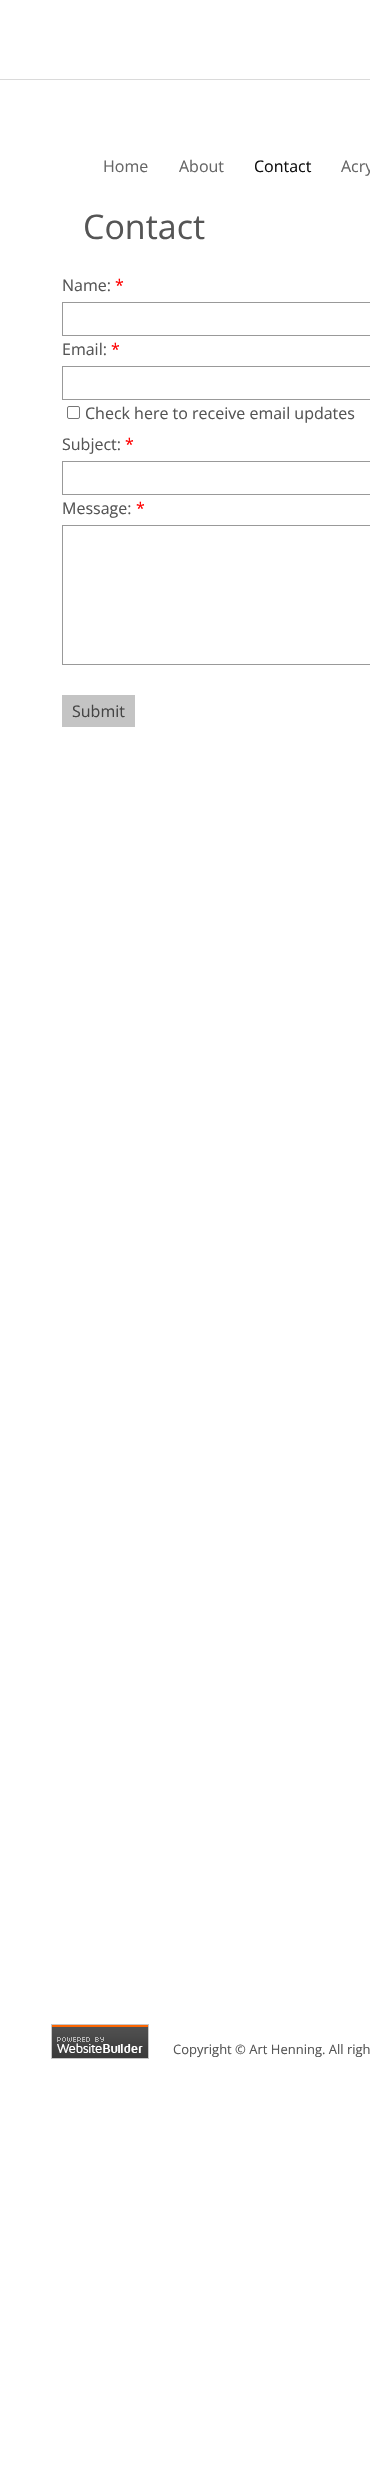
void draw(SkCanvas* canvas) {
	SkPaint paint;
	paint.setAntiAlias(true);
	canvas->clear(0xffffffff);
	paint.setColor(0xffdadada);
	canvas->drawRect(SkRect::MakeXYWH(0, 79, 370, 1), paint);
	SkFont f1(fontMgr->matchFamilyStyle("Open Sans", SkFontStyle::Normal()), 16);
	f1.setSubpixel(true);
	paint.setColor(0xff666666);
	canvas->drawString("Home", 103, 172, f1, paint);
	canvas->drawString("About", 179, 172, f1, paint);
	paint.setColor(0xff111111);
	canvas->drawString("Contact", 254, 172, f1, paint);
	paint.setColor(0xff666666);
	canvas->drawString("Acry", 341, 172, f1, paint);
	SkFont f2(fontMgr->matchFamilyStyle("Open Sans", SkFontStyle::Normal()), 34);
	f2.setSubpixel(true);
	paint.setColor(0xff555555);
	canvas->drawString("Contact", 83, 239, f2, paint);
	canvas->drawString("Name:", 62, 291, f1, paint);
	paint.setColor(0xffff0000);
	canvas->drawString("*", 115, 291, f1, paint);
	paint.setStroke(true);
	paint.setStrokeWidth(1);
	paint.setColor(0xff999999);
	canvas->drawRect(SkRect::MakeXYWH(62.5, 302.5, 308, 33), paint);
	paint.setStroke(false);
	paint.setColor(0xff555555);
	canvas->drawString("Email:", 62, 355, f1, paint);
	paint.setColor(0xffff0000);
	canvas->drawString("*", 111, 355, f1, paint);
	paint.setStroke(true);
	paint.setColor(0xff999999);
	canvas->drawRect(SkRect::MakeXYWH(62.5, 366.5, 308, 33), paint);
	paint.setColor(0xff767676);
	canvas->drawRoundRect(SkRect::MakeXYWH(67.5, 406.5, 12, 12), 1.5, 1.5, paint);
	paint.setStroke(false);
	paint.setColor(0xff555555);
	canvas->drawString("Check here to receive email updates", 85, 419, f1, paint);
	canvas->drawString("Subject:", 62, 450, f1, paint);
	paint.setColor(0xffff0000);
	canvas->drawString("*", 125, 450, f1, paint);
	paint.setStroke(true);
	paint.setColor(0xff999999);
	canvas->drawRect(SkRect::MakeXYWH(62.5, 461.5, 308, 33), paint);
	paint.setStroke(false);
	paint.setColor(0xff555555);
	canvas->drawString("Message:", 62, 514, f1, paint);
	paint.setColor(0xffff0000);
	canvas->drawString("*", 136, 514, f1, paint);
	paint.setStroke(true);
	paint.setColor(0xff999999);
	canvas->drawRect(SkRect::MakeXYWH(62.5, 525.5, 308, 139), paint);
	paint.setStroke(false);
	paint.setColor(0xffc4c4c4);
	canvas->drawRect(SkRect::MakeXYWH(62, 695, 73, 32), paint);
	paint.setColor(0xff444444);
	canvas->drawString("Submit", 72, 717, f1, paint);
	canvas->drawImageRect(SkImages::DeferredFromEncodedData(SkData::MakeFromFileName("img1.png")), SkRect::MakeXYWH(51, 2024, 98, 35), SkSamplingOptions());
	SkFont f3(fontMgr->matchFamilyStyle("Open Sans", SkFontStyle::Normal()), 13);
	f3.setSubpixel(true);
	paint.setColor(0xff555555);
	canvas->drawString("Copyright © Art Henning. All righ", 173, 2054, f3, paint);
}
